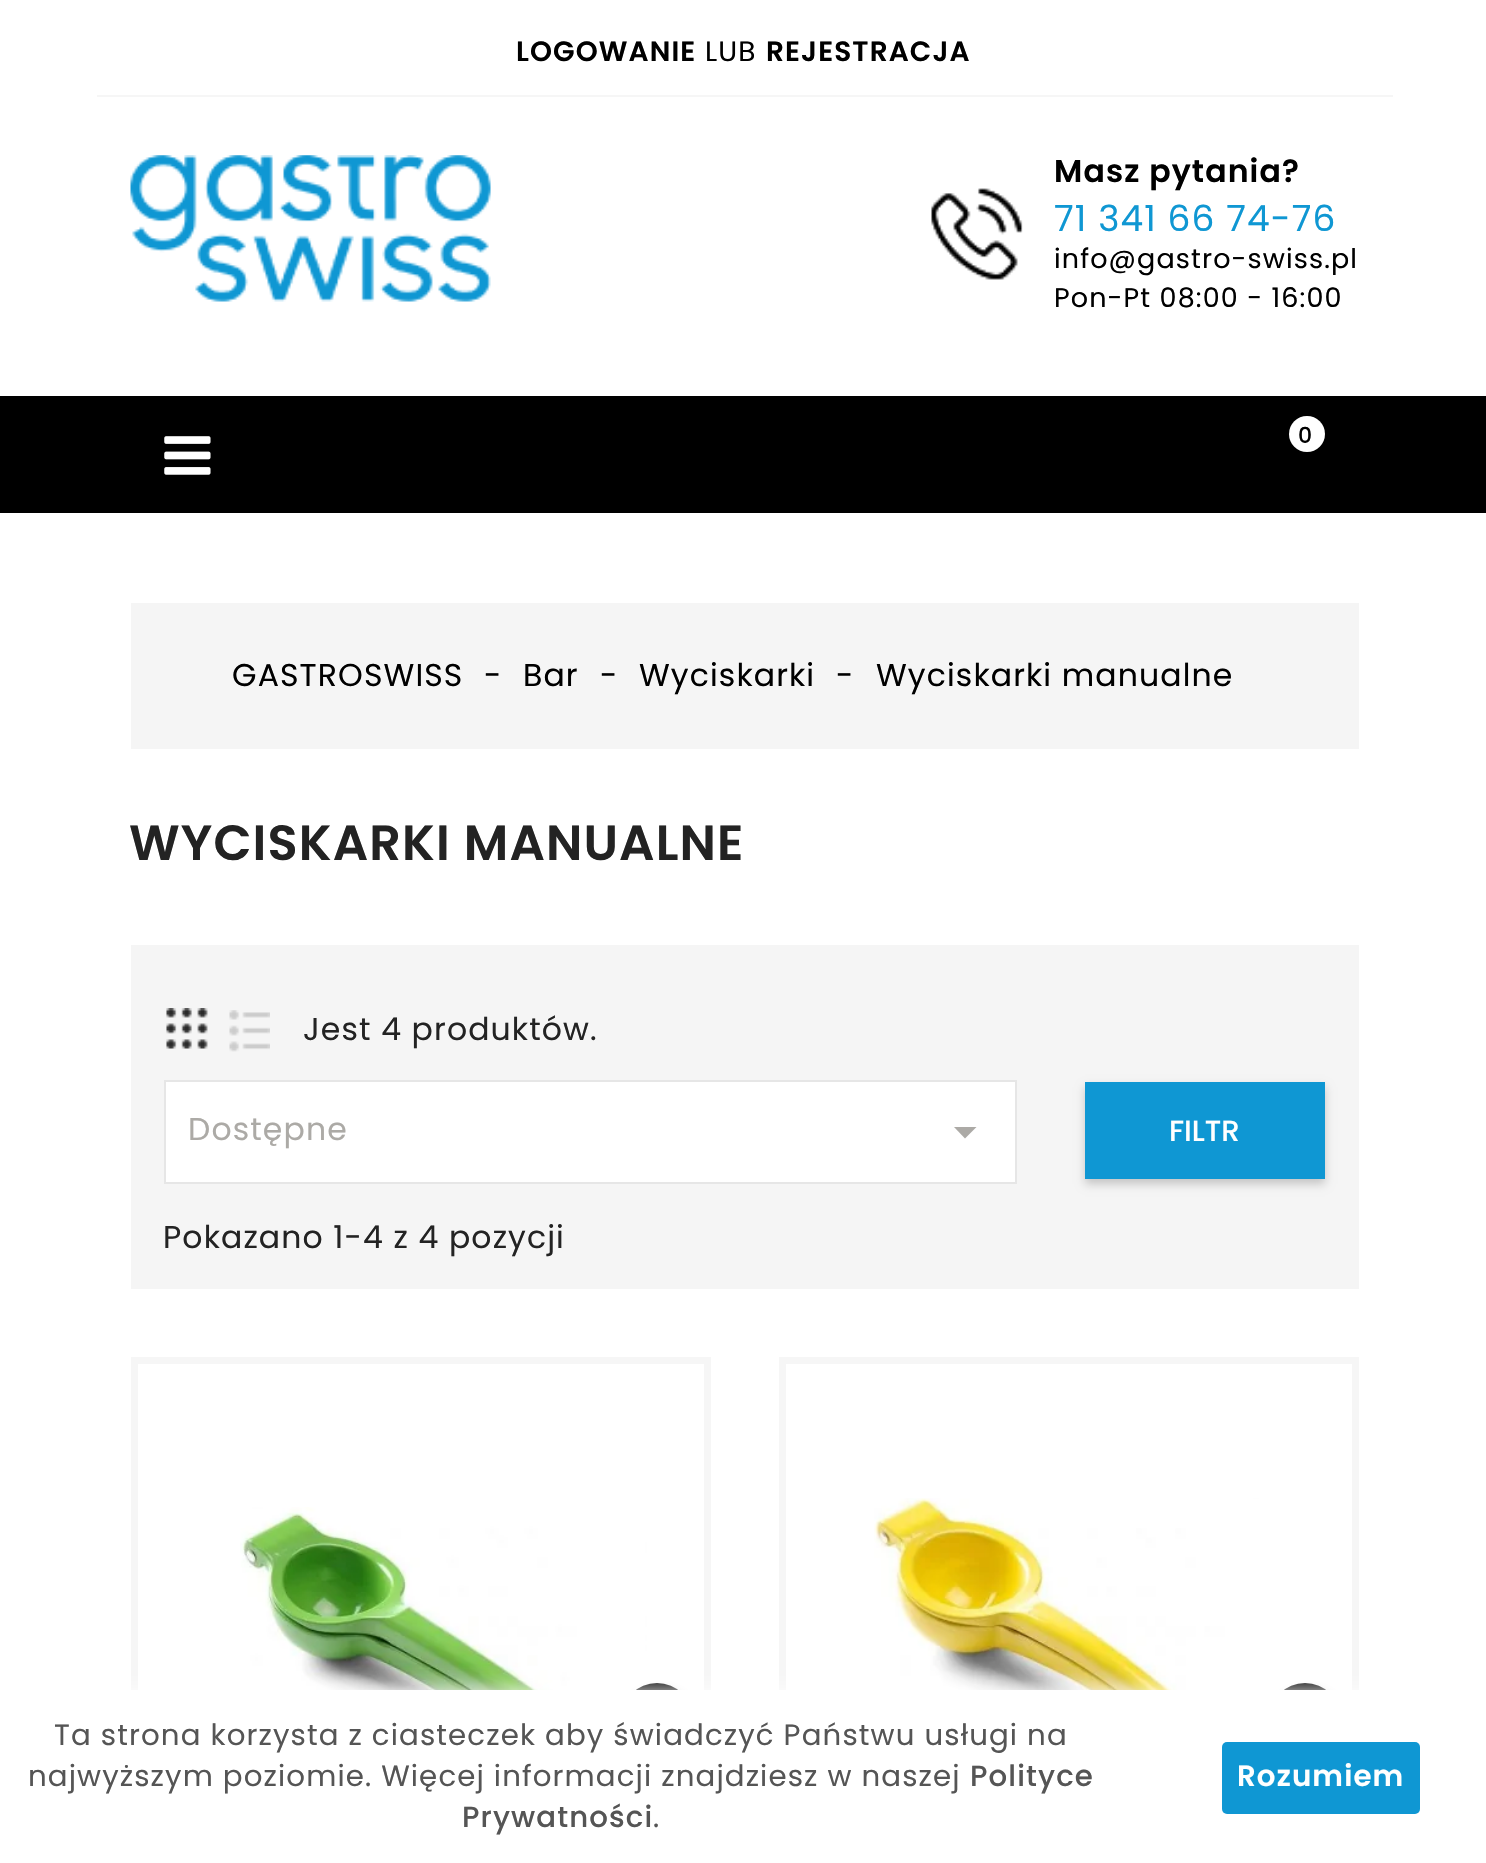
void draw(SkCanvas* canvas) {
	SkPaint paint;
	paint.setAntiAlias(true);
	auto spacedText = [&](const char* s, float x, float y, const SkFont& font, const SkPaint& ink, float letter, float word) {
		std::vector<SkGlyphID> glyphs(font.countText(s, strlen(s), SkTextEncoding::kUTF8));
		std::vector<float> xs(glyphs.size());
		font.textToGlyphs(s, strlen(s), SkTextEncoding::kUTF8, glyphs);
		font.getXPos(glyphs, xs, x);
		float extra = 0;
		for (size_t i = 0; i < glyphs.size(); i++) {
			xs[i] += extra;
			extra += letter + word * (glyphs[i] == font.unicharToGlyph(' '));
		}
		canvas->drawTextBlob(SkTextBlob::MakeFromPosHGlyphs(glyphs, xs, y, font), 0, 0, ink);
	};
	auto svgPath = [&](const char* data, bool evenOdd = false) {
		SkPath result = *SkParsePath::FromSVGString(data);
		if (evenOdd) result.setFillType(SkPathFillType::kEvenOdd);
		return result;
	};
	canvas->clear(0xffffffff);
	paint.setColor(0xfff6f6f6);
	canvas->drawRect(SkRect::MakeXYWH(97, 95, 1296, 2), paint);
	SkFont f1(fontMgr->matchFamilyStyle("Poppins", SkFontStyle(600, SkFontStyle::kNormal_Width, SkFontStyle::kUpright_Slant)), 28);
	f1.setSubpixel(true);
	paint.setColor(0xff000000);
	spacedText("LOGOWANIE", 516, 61, f1, paint, 1.12, 0);
	SkFont f2(fontMgr->matchFamilyStyle("Poppins", SkFontStyle::Normal()), 28);
	f2.setSubpixel(true);
	spacedText("LUB", 705, 61, f2, paint, 1.12, 0);
	spacedText("REJESTRACJA", 766, 61, f1, paint, 1.12, 0);
	canvas->drawImageRect(SkImages::DeferredFromEncodedData(SkData::MakeFromFileName("img1.png")), SkRect::MakeXYWH(130, 155, 361, 147), SkSamplingOptions());
	canvas->drawImageRect(SkImages::DeferredFromEncodedData(SkData::MakeFromFileName("img2.png")), SkRect::MakeXYWH(931, 188, 92, 92), SkSamplingOptions());
	SkFont f3(fontMgr->matchFamilyStyle("Poppins", SkFontStyle(600, SkFontStyle::kNormal_Width, SkFontStyle::kUpright_Slant)), 31.5);
	f3.setSubpixel(true);
	spacedText("Masz pytania?", 1054, 182, f3, paint, 1.12, 0);
	SkFont f4(fontMgr->matchFamilyStyle("Poppins", SkFontStyle::Normal()), 36);
	f4.setSubpixel(true);
	paint.setColor(0xff0f97d3);
	spacedText("71 341 66 74-76", 1054, 231, f4, paint, 1.12, 0);
	SkFont f5(fontMgr->matchFamilyStyle("Poppins", SkFontStyle::Normal()), 27);
	f5.setSubpixel(true);
	paint.setColor(0xff000000);
	spacedText("info@gastro-swiss.pl", 1054, 268, f5, paint, 1.12, 0);
	spacedText("Pon-Pt 08:00 - 16:00", 1054, 307, f5, paint, 1.12, 0);
	canvas->drawRect(SkRect::MakeXYWH(0, 396, 1486, 117), paint);
	canvas->drawImageRect(SkImages::DeferredFromEncodedData(SkData::MakeFromFileName("img3.png")), SkRect::MakeXYWH(164, 436, 47, 39), SkSamplingOptions());
	paint.setColor(0xffffffff);
	canvas->drawCircle(1307, 434, 18, paint);
	SkFont f6(fontMgr->matchFamilyStyle("Poppins", SkFontStyle(500, SkFontStyle::kNormal_Width, SkFontStyle::kUpright_Slant)), 22);
	f6.setSubpixel(true);
	paint.setColor(0xff000000);
	spacedText("0", 1298, 443, f6, paint, 1.12, 0);
	paint.setColor(0xfff5f5f5);
	canvas->drawRect(SkRect::MakeXYWH(131, 603, 1228, 146), paint);
	SkFont f7(fontMgr->matchFamilyStyle("Poppins", SkFontStyle::Normal()), 31.5);
	f7.setSubpixel(true);
	paint.setColor(0xff000000);
	spacedText("GASTROSWISS", 232, 686, f7, paint, 1.12, 0);
	spacedText("-", 484, 686, f7, paint, 1.12, 0);
	spacedText("Bar", 523, 686, f7, paint, 1.12, 0);
	spacedText("-", 600, 686, f7, paint, 1.12, 0);
	spacedText("Wyciskarki", 639, 686, f7, paint, 1.12, 0);
	spacedText("-", 836, 686, f7, paint, 1.12, 0);
	spacedText("Wyciskarki manualne", 876, 686, f7, paint, 1.12, 0);
	SkFont f8(fontMgr->matchFamilyStyle("Poppins", SkFontStyle(600, SkFontStyle::kNormal_Width, SkFontStyle::kUpright_Slant)), 49.5);
	f8.setSubpixel(true);
	paint.setColor(0xff232323);
	spacedText("WYCISKARKI MANUALNE", 129, 860, f8, paint, 1.12, 0);
	paint.setColor(0xfff5f5f5);
	canvas->drawRect(SkRect::MakeXYWH(131, 945, 1228, 344), paint);
	canvas->drawImageRect(SkImages::DeferredFromEncodedData(SkData::MakeFromFileName("img4.png")), SkRect::MakeXYWH(166, 1008, 42, 41), SkSamplingOptions());
	canvas->drawImageRect(SkImages::DeferredFromEncodedData(SkData::MakeFromFileName("img5.png")), SkRect::MakeXYWH(229, 1010, 41, 42), SkSamplingOptions());
	paint.setColor(0xff232323);
	spacedText("Jest 4 produktów.", 303, 1040, f7, paint, 1.12, 0);
	paint.setColor(0xffffffff);
	canvas->drawRect(SkRect::MakeXYWH(165, 1081, 851, 102), paint);
	paint.setStroke(true);
	paint.setStrokeWidth(2);
	paint.setColor(0xffe6e6e6);
	canvas->drawRect(SkRect::MakeXYWH(165, 1081, 851, 102), paint);
	paint.setStroke(false);
	paint.setColor(0xffacaaa6);
	spacedText("Dostępne", 188, 1140, f7, paint, 1.12, 0);
	canvas->drawPath(svgPath("M954 1127H976.5L965 1138.5Z"), paint);
	paint.setColor(0x33000000);
	paint.setMaskFilter(SkMaskFilter::MakeBlur(kNormal_SkBlurStyle, 4.5));
	canvas->drawRect(SkRect::MakeXYWH(1085, 1087, 240, 97), paint);
	paint.setMaskFilter(nullptr);
	paint.setColor(0xff0f97d3);
	canvas->drawRect(SkRect::MakeXYWH(1085, 1082, 240, 97), paint);
	SkFont f9(fontMgr->matchFamilyStyle("Poppins", SkFontStyle(500, SkFontStyle::kNormal_Width, SkFontStyle::kUpright_Slant)), 29.25);
	f9.setSubpixel(true);
	paint.setColor(0xffffffff);
	canvas->drawString("FILTR", 1169, 1141, f9, paint);
	paint.setColor(0xff232323);
	spacedText("Pokazano 1-4 z 4 pozycji", 163, 1248, f7, paint, 1.12, 0);
	paint.setStroke(true);
	paint.setStrokeWidth(7);
	paint.setColor(0xfff6f6f6);
	canvas->drawRect(SkRect::MakeXYWH(134.5, 1360.5, 573, 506), paint);
	canvas->drawImageRect(SkImages::DeferredFromEncodedData(SkData::MakeFromFileName("img6.png")), SkRect::MakeXYWH(240, 1507, 407, 183), SkSamplingOptions());
	paint.setStroke(false);
	paint.setColor(0x1a000000);
	paint.setMaskFilter(SkMaskFilter::MakeBlur(kNormal_SkBlurStyle, 2));
	canvas->drawRoundRect(SkRect::MakeXYWH(621, 1685, 77, 77), 38.5, 38.5, paint);
	paint.setMaskFilter(nullptr);
	paint.setColor(0xff000000);
	canvas->drawCircle(657, 1719, 36, paint);
	paint.setStroke(true);
	paint.setColor(0xfff6f6f6);
	canvas->drawRect(SkRect::MakeXYWH(782.5, 1360.5, 573, 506), paint);
	canvas->drawImageRect(SkImages::DeferredFromEncodedData(SkData::MakeFromFileName("img7.png")), SkRect::MakeXYWH(874, 1498, 385, 192), SkSamplingOptions());
	paint.setStroke(false);
	paint.setColor(0x1a000000);
	paint.setMaskFilter(SkMaskFilter::MakeBlur(kNormal_SkBlurStyle, 2));
	canvas->drawRoundRect(SkRect::MakeXYWH(1269, 1685, 77, 77), 38.5, 38.5, paint);
	paint.setMaskFilter(nullptr);
	paint.setColor(0xff000000);
	canvas->drawCircle(1305, 1719, 36, paint);
	paint.setColor(0xffffffff);
	paint.setMaskFilter(SkMaskFilter::MakeBlur(kNormal_SkBlurStyle, 11));
	canvas->drawRect(SkRect::MakeXYWH(0, 1690, 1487, 173), paint);
	paint.setMaskFilter(nullptr);
	canvas->drawRect(SkRect::MakeXYWH(131, 1690, 1228, 173), paint);
	SkFont f10(fontMgr->matchFamilyStyle("Poppins", SkFontStyle::Normal()), 29.25);
	f10.setSubpixel(true);
	paint.setColor(0xff555555);
	spacedText("Ta strona korzysta z ciasteczek aby świadczyć Państwu usługi na", 54, 1745, f10, paint, 1.12, 0);
	spacedText("najwyższym poziomie. Więcej informacji znajdziesz w naszej", 28, 1786, f10, paint, 1.12, 0);
	spacedText("Polityce", 970, 1786, f9, paint, 1.12, 0);
	spacedText("Prywatności", 462, 1827, f9, paint, 1.12, 0);
	spacedText(".", 653, 1827, f10, paint, 1.12, 0);
	paint.setColor(0xff0f97d3);
	canvas->drawRoundRect(SkRect::MakeXYWH(1222, 1742, 198, 72), 5, 5, paint);
	SkFont f11(fontMgr->matchFamilyStyle("Poppins", SkFontStyle(600, SkFontStyle::kNormal_Width, SkFontStyle::kUpright_Slant)), 29.25);
	f11.setSubpixel(true);
	paint.setColor(0xffffffff);
	spacedText("Rozumiem", 1237, 1786, f11, paint, 1.12, 0);
}
